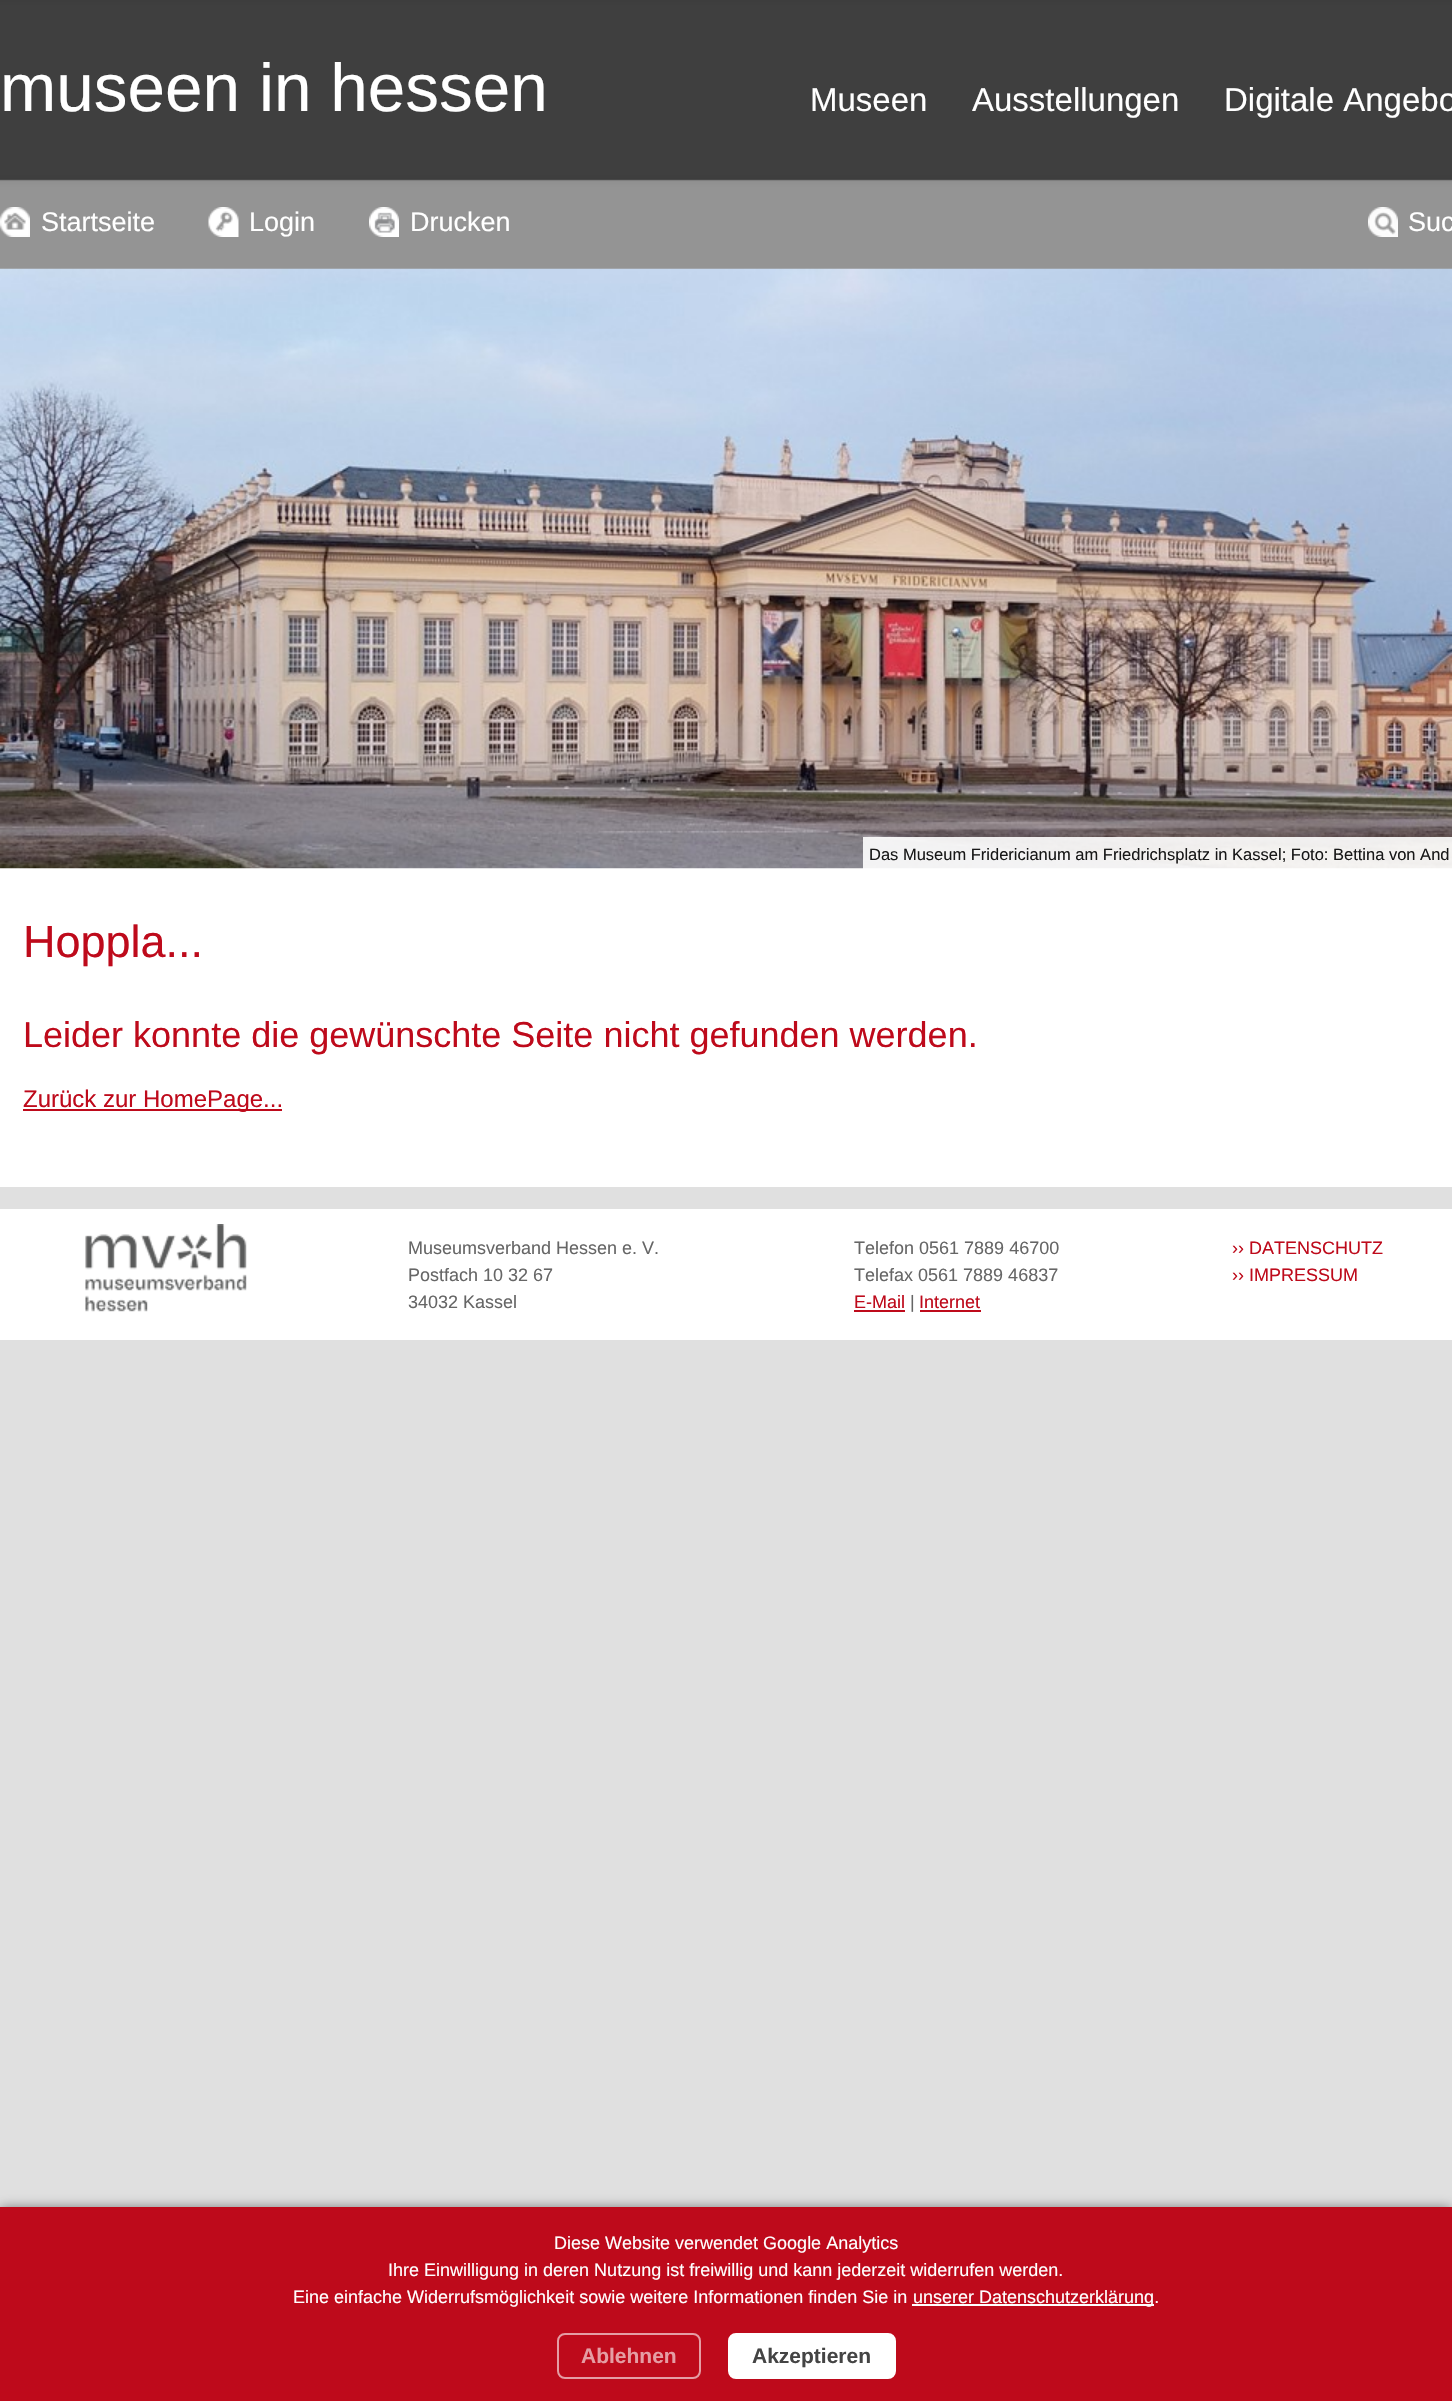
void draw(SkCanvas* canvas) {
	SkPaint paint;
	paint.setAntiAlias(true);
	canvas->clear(0xffe0e0e0);
	canvas->drawImageRect(SkImages::DeferredFromEncodedData(SkData::MakeFromFileName("img1.png")), SkRect::MakeXYWH(0, 0, 1452, 207), SkSamplingOptions());
	SkFont f1(fontMgr->matchFamilyStyle("Liberation Sans", SkFontStyle::Normal()), 67.5);
	f1.setSubpixel(true);
	paint.setColor(0xffffffff);
	canvas->drawString("museen in hessen", 0, 111, f1, paint);
	SkFont f2(fontMgr->matchFamilyStyle("Liberation Sans", SkFontStyle::Normal()), 33);
	f2.setSubpixel(true);
	canvas->drawString("Museen", 810, 111, f2, paint);
	canvas->drawString("Ausstellungen", 972, 111, f2, paint);
	canvas->drawString("Digitale Angebo", 1224, 111, f2, paint);
	paint.setColor(0xff949494);
	canvas->drawRect(SkRect::MakeXYWH(0, 207, 1452, 62), paint);
	canvas->drawImageRect(SkImages::DeferredFromEncodedData(SkData::MakeFromFileName("img2.png")), SkRect::MakeXYWH(0, 207, 30, 30), SkSamplingOptions());
	SkFont f3(fontMgr->matchFamilyStyle("Liberation Sans", SkFontStyle::Normal()), 27);
	f3.setSubpixel(true);
	paint.setColor(0xffffffff);
	canvas->drawString("Startseite", 41, 231, f3, paint);
	canvas->drawImageRect(SkImages::DeferredFromEncodedData(SkData::MakeFromFileName("img3.png")), SkRect::MakeXYWH(208, 207, 31, 30), SkSamplingOptions());
	canvas->drawString("Login", 249, 231, f3, paint);
	canvas->drawImageRect(SkImages::DeferredFromEncodedData(SkData::MakeFromFileName("img4.png")), SkRect::MakeXYWH(369, 207, 30, 30), SkSamplingOptions());
	canvas->drawString("Drucken", 410, 231, f3, paint);
	canvas->drawImageRect(SkImages::DeferredFromEncodedData(SkData::MakeFromFileName("img5.png")), SkRect::MakeXYWH(1368, 207, 30, 30), SkSamplingOptions());
	canvas->drawString("Suc", 1408, 231, f3, paint);
	canvas->drawRect(SkRect::MakeXYWH(0, 868, 1452, 319), paint);
	canvas->drawImageRect(SkImages::DeferredFromEncodedData(SkData::MakeFromFileName("img6.png")), SkRect::MakeXYWH(0, 268, 1452, 601), SkSamplingOptions());
	paint.setColor(0xe6ffffff);
	canvas->drawRect(SkRect::MakeXYWH(863, 837, 589, 32), paint);
	SkFont f4(fontMgr->matchFamilyStyle("Liberation Sans", SkFontStyle::Normal()), 16.5);
	f4.setSubpixel(true);
	paint.setColor(0xff181818);
	canvas->drawString("Das Museum Fridericianum am Friedrichsplatz in Kassel; Foto: Bettina von And", 869, 860, f4, paint);
	SkFont f5(fontMgr->matchFamilyStyle("Liberation Sans", SkFontStyle::Normal()), 45);
	f5.setSubpixel(true);
	paint.setColor(0xffbe0a1b);
	canvas->drawString("Hoppla...", 23, 957, f5, paint);
	SkFont f6(fontMgr->matchFamilyStyle("Liberation Sans", SkFontStyle::Normal()), 36);
	f6.setSubpixel(true);
	canvas->drawString("Leider konnte die gewünschte Seite nicht gefunden werden.", 23, 1047, f6, paint);
	canvas->drawRect(SkRect::MakeXYWH(23, 1109, 259, 2), paint);
	SkFont f7(fontMgr->matchFamilyStyle("Liberation Sans", SkFontStyle::Normal()), 24);
	f7.setSubpixel(true);
	canvas->drawString("Zurück zur HomePage...", 23, 1107, f7, paint);
	paint.setColor(0xffffffff);
	canvas->drawRect(SkRect::MakeXYWH(0, 1209, 1452, 131), paint);
	canvas->drawImageRect(SkImages::DeferredFromEncodedData(SkData::MakeFromFileName("img7.png")), SkRect::MakeXYWH(85, 1224, 162, 88), SkSamplingOptions());
	SkFont f8(fontMgr->matchFamilyStyle("Liberation Sans", SkFontStyle::Normal()), 18);
	f8.setSubpixel(true);
	paint.setColor(0xff666666);
	canvas->drawString("Museumsverband Hessen e. V.", 408, 1254, f8, paint);
	canvas->drawString("Postfach 10 32 67", 408, 1281, f8, paint);
	canvas->drawString("34032 Kassel", 408, 1308, f8, paint);
	canvas->drawString("Telefon 0561 7889 46700", 854, 1254, f8, paint);
	canvas->drawString("Telefax 0561 7889 46837", 854, 1281, f8, paint);
	paint.setColor(0xffbe0a1b);
	canvas->drawString("E-Mail", 854, 1308, f8, paint);
	canvas->drawRect(SkRect::MakeXYWH(854, 1310, 51, 2), paint);
	paint.setColor(0xff666666);
	canvas->drawString("|", 910, 1308, f8, paint);
	paint.setColor(0xffbe0a1b);
	canvas->drawString("Internet", 919, 1308, f8, paint);
	canvas->drawRect(SkRect::MakeXYWH(920, 1310, 61, 2), paint);
	canvas->drawString("›› DATENSCHUTZ", 1232, 1254, f8, paint);
	canvas->drawString("›› IMPRESSUM", 1232, 1281, f8, paint);
	paint.setColor(0x80000000);
	paint.setMaskFilter(SkMaskFilter::MakeBlur(kNormal_SkBlurStyle, 6));
	canvas->drawRect(SkRect::MakeXYWH(0, 2208, 1452, 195), paint);
	paint.setMaskFilter(nullptr);
	paint.setColor(0xffbe0a1b);
	canvas->drawRect(SkRect::MakeXYWH(0, 2207, 1452, 194), paint);
	paint.setColor(0xffffffff);
	canvas->drawString("Diese Website verwendet Google Analytics", 554, 2249, f8, paint);
	canvas->drawString("Ihre Einwilligung in deren Nutzung ist freiwillig und kann jederzeit widerrufen werden.", 388, 2276, f8, paint);
	canvas->drawString("Eine einfache Widerrufsmöglichkeit sowie weitere Informationen finden Sie in", 293, 2303, f8, paint);
	canvas->drawRect(SkRect::MakeXYWH(912, 2304, 242, 2), paint);
	canvas->drawString("unserer Datenschutzerklärung.", 913, 2303, f8, paint);
	paint.setStroke(true);
	paint.setStrokeWidth(2);
	paint.setColor(0xffe59da4);
	canvas->drawRoundRect(SkRect::MakeXYWH(558, 2334, 142, 44), 7, 7, paint);
	SkFont f9(fontMgr->matchFamilyStyle("Liberation Sans", SkFontStyle::Bold()), 21);
	f9.setSubpixel(true);
	paint.setStroke(false);
	canvas->drawString("Ablehnen", 581, 2363, f9, paint);
	paint.setColor(0xffffffff);
	canvas->drawRoundRect(SkRect::MakeXYWH(729, 2334, 166, 44), 7, 7, paint);
	paint.setStroke(true);
	canvas->drawRoundRect(SkRect::MakeXYWH(729, 2334, 166, 44), 7, 7, paint);
	paint.setStroke(false);
	paint.setColor(0xff444444);
	canvas->drawString("Akzeptieren", 752, 2363, f9, paint);
}
